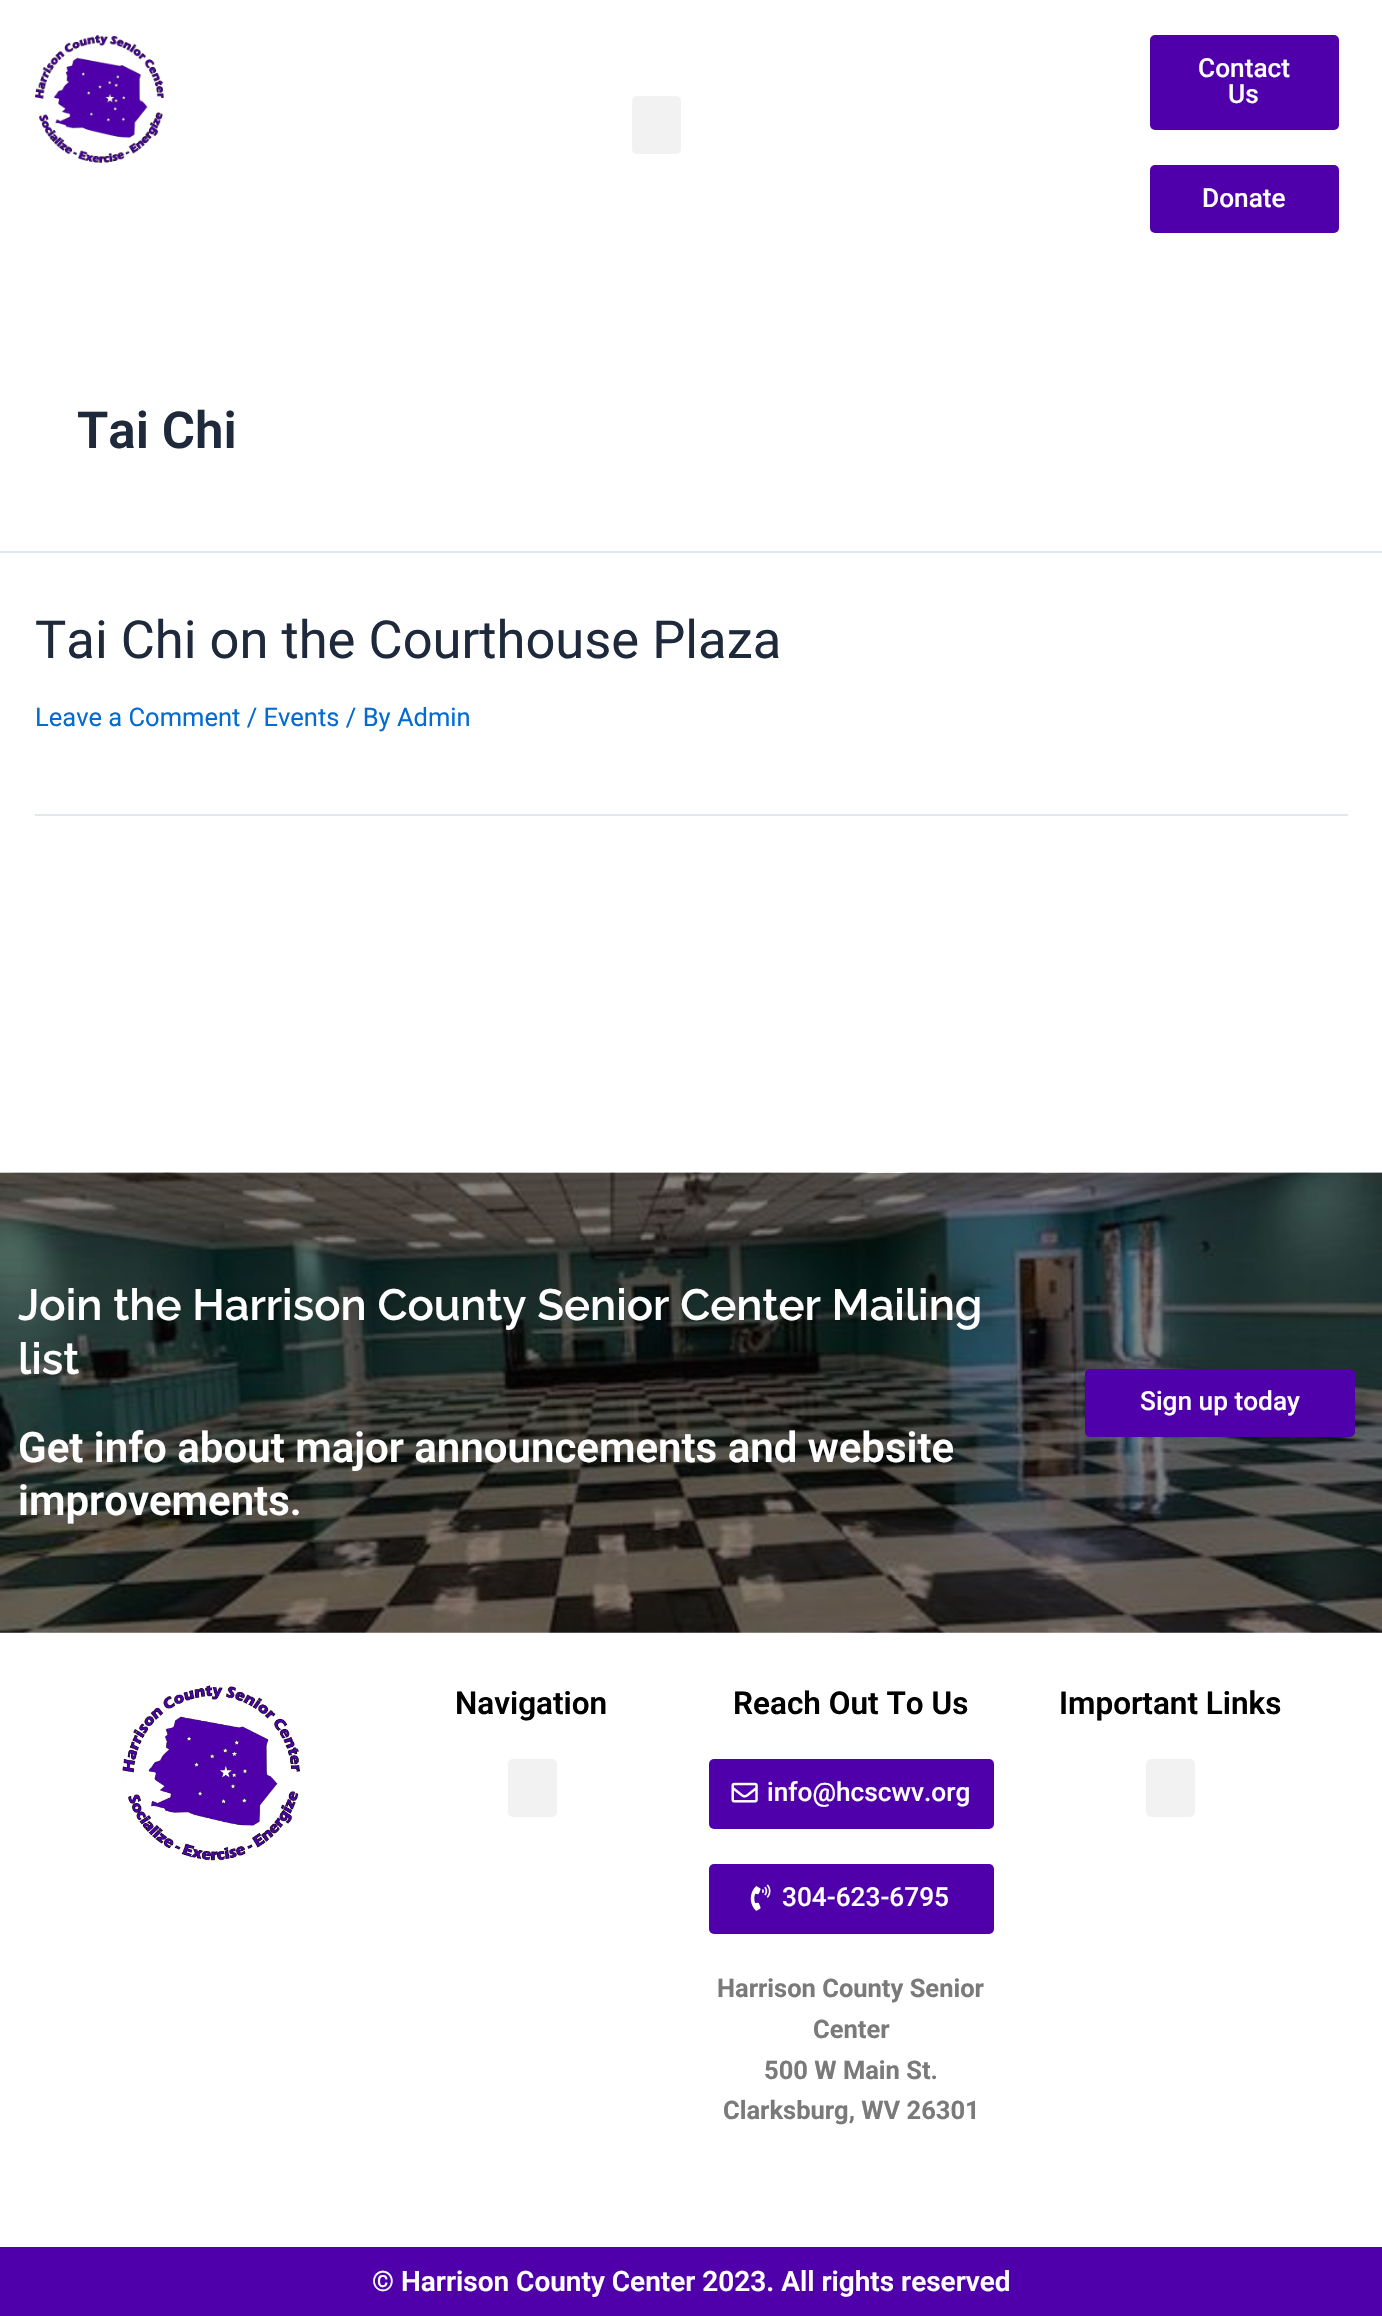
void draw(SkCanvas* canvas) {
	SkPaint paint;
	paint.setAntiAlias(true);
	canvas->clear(0xffffffff);
	canvas->drawImageRect(SkImages::DeferredFromEncodedData(SkData::MakeFromFileName("img1.png")), SkRect::MakeXYWH(35, 35, 129, 128), SkSamplingOptions());
	paint.setColor(0xfff2f2f2);
	canvas->drawRoundRect(SkRect::MakeXYWH(632, 96, 49, 58), 5, 5, paint);
	paint.setColor(0xff5000aa);
	canvas->drawRoundRect(SkRect::MakeXYWH(1150, 35, 189, 95), 5, 5, paint);
	SkFont f1(fontMgr->matchFamilyStyle("Roboto", SkFontStyle(500, SkFontStyle::kNormal_Width, SkFontStyle::kUpright_Slant)), 26.25);
	f1.setSubpixel(true);
	paint.setColor(0xffffffff);
	canvas->drawString("Contact", 1198, 77, f1, paint);
	canvas->drawString("Us", 1228, 103, f1, paint);
	paint.setColor(0xff5000aa);
	canvas->drawRoundRect(SkRect::MakeXYWH(1150, 165, 189, 68), 5, 5, paint);
	paint.setColor(0xffffffff);
	canvas->drawString("Donate", 1202, 207, f1, paint);
	paint.setColor(0xffe2e8f0);
	canvas->drawRect(SkRect::MakeXYWH(0, 551, 1382, 2), paint);
	SkFont f2(fontMgr->matchFamilyStyle("Roboto", SkFontStyle(600, SkFontStyle::kNormal_Width, SkFontStyle::kUpright_Slant)), 51);
	f2.setSubpixel(true);
	paint.setColor(0xff1e293b);
	canvas->drawString("Tai Chi", 77, 448, f2, paint);
	paint.setColor(0xffe2e8f0);
	canvas->drawRect(SkRect::MakeXYWH(35, 814, 1313, 2), paint);
	SkFont f3(fontMgr->matchFamilyStyle("Roboto", SkFontStyle::Normal()), 52.5);
	f3.setSubpixel(true);
	paint.setColor(0xff1e293b);
	canvas->drawString("Tai Chi on the Courthouse Plaza", 35, 658, f3, paint);
	SkFont f4(fontMgr->matchFamilyStyle("Roboto", SkFontStyle::Normal()), 25.5);
	f4.setSubpixel(true);
	paint.setColor(0xff046bd2);
	canvas->drawString("Leave a Comment / Events / By Admin", 35, 726, f4, paint);
	canvas->drawImageRect(SkImages::DeferredFromEncodedData(SkData::MakeFromFileName("img2.png")), SkRect::MakeXYWH(0, 1172, 1382, 461), SkSamplingOptions());
	SkFont f5(fontMgr->matchFamilyStyle("Raleway", SkFontStyle(600, SkFontStyle::kNormal_Width, SkFontStyle::kUpright_Slant)), 43.75);
	f5.setSubpixel(true);
	paint.setColor(0xffffffff);
	canvas->drawString("Join the Harrison County Senior Center Mailing", 18, 1320, f5, paint);
	canvas->drawString("list", 18, 1374, f5, paint);
	SkFont f6(fontMgr->matchFamilyStyle("Roboto", SkFontStyle(600, SkFontStyle::kNormal_Width, SkFontStyle::kUpright_Slant)), 42);
	f6.setSubpixel(true);
	canvas->drawString("Get info about major announcements and website", 18, 1462, f6, paint);
	canvas->drawString("improvements.", 18, 1515, f6, paint);
	paint.setColor(0xff5000aa);
	canvas->drawRoundRect(SkRect::MakeXYWH(1085, 1369, 270, 68), 5, 5, paint);
	paint.setColor(0xffffffff);
	canvas->drawString("Sign up today", 1140, 1410, f1, paint);
	canvas->drawImageRect(SkImages::DeferredFromEncodedData(SkData::MakeFromFileName("img3.png")), SkRect::MakeXYWH(122, 1685, 178, 176), SkSamplingOptions());
	SkFont f7(fontMgr->matchFamilyStyle("Roboto", SkFontStyle(600, SkFontStyle::kNormal_Width, SkFontStyle::kUpright_Slant)), 31.5);
	f7.setSubpixel(true);
	paint.setColor(0xff000000);
	canvas->drawString("Navigation", 455, 1714, f7, paint);
	paint.setColor(0xfff2f2f2);
	canvas->drawRoundRect(SkRect::MakeXYWH(508, 1759, 49, 58), 5, 5, paint);
	paint.setColor(0xff000000);
	canvas->drawString("Reach Out To Us", 733, 1714, f7, paint);
	paint.setColor(0xff5000aa);
	canvas->drawRoundRect(SkRect::MakeXYWH(709, 1759, 285, 70), 5, 5, paint);
	canvas->drawImageRect(SkImages::DeferredFromEncodedData(SkData::MakeFromFileName("img4.png")), SkRect::MakeXYWH(731, 1782, 27, 21), SkSamplingOptions());
	paint.setColor(0xffffffff);
	canvas->drawString("info@hcscwv.org", 767, 1801, f1, paint);
	paint.setColor(0xff5000aa);
	canvas->drawRoundRect(SkRect::MakeXYWH(709, 1864, 285, 70), 5, 5, paint);
	canvas->drawImageRect(SkImages::DeferredFromEncodedData(SkData::MakeFromFileName("img5.png")), SkRect::MakeXYWH(750, 1884, 21, 27), SkSamplingOptions());
	paint.setColor(0xffffffff);
	canvas->drawString("304-623-6795", 782, 1906, f1, paint);
	SkFont f8(fontMgr->matchFamilyStyle("Roboto", SkFontStyle::Bold()), 25.5);
	f8.setSubpixel(true);
	paint.setColor(0xff7a7a7a);
	canvas->drawString("Harrison County Senior", 717, 1997, f8, paint);
	canvas->drawString("Center", 813, 2038, f8, paint);
	canvas->drawString("500 W Main St.", 764, 2079, f8, paint);
	canvas->drawString("Clarksburg, WV 26301", 723, 2119, f8, paint);
	paint.setColor(0xff000000);
	canvas->drawString("Important Links", 1059, 1714, f7, paint);
	paint.setColor(0xfff2f2f2);
	canvas->drawRoundRect(SkRect::MakeXYWH(1146, 1759, 49, 58), 5, 5, paint);
	paint.setColor(0xff5000aa);
	canvas->drawRect(SkRect::MakeXYWH(0, 2247, 1382, 69), paint);
	SkFont f9(fontMgr->matchFamilyStyle("Roboto", SkFontStyle(600, SkFontStyle::kNormal_Width, SkFontStyle::kUpright_Slant)), 28);
	f9.setSubpixel(true);
	paint.setColor(0xffffffff);
	canvas->drawString("© Harrison County Center 2023. All rights reserved", 372, 2291, f9, paint);
}
